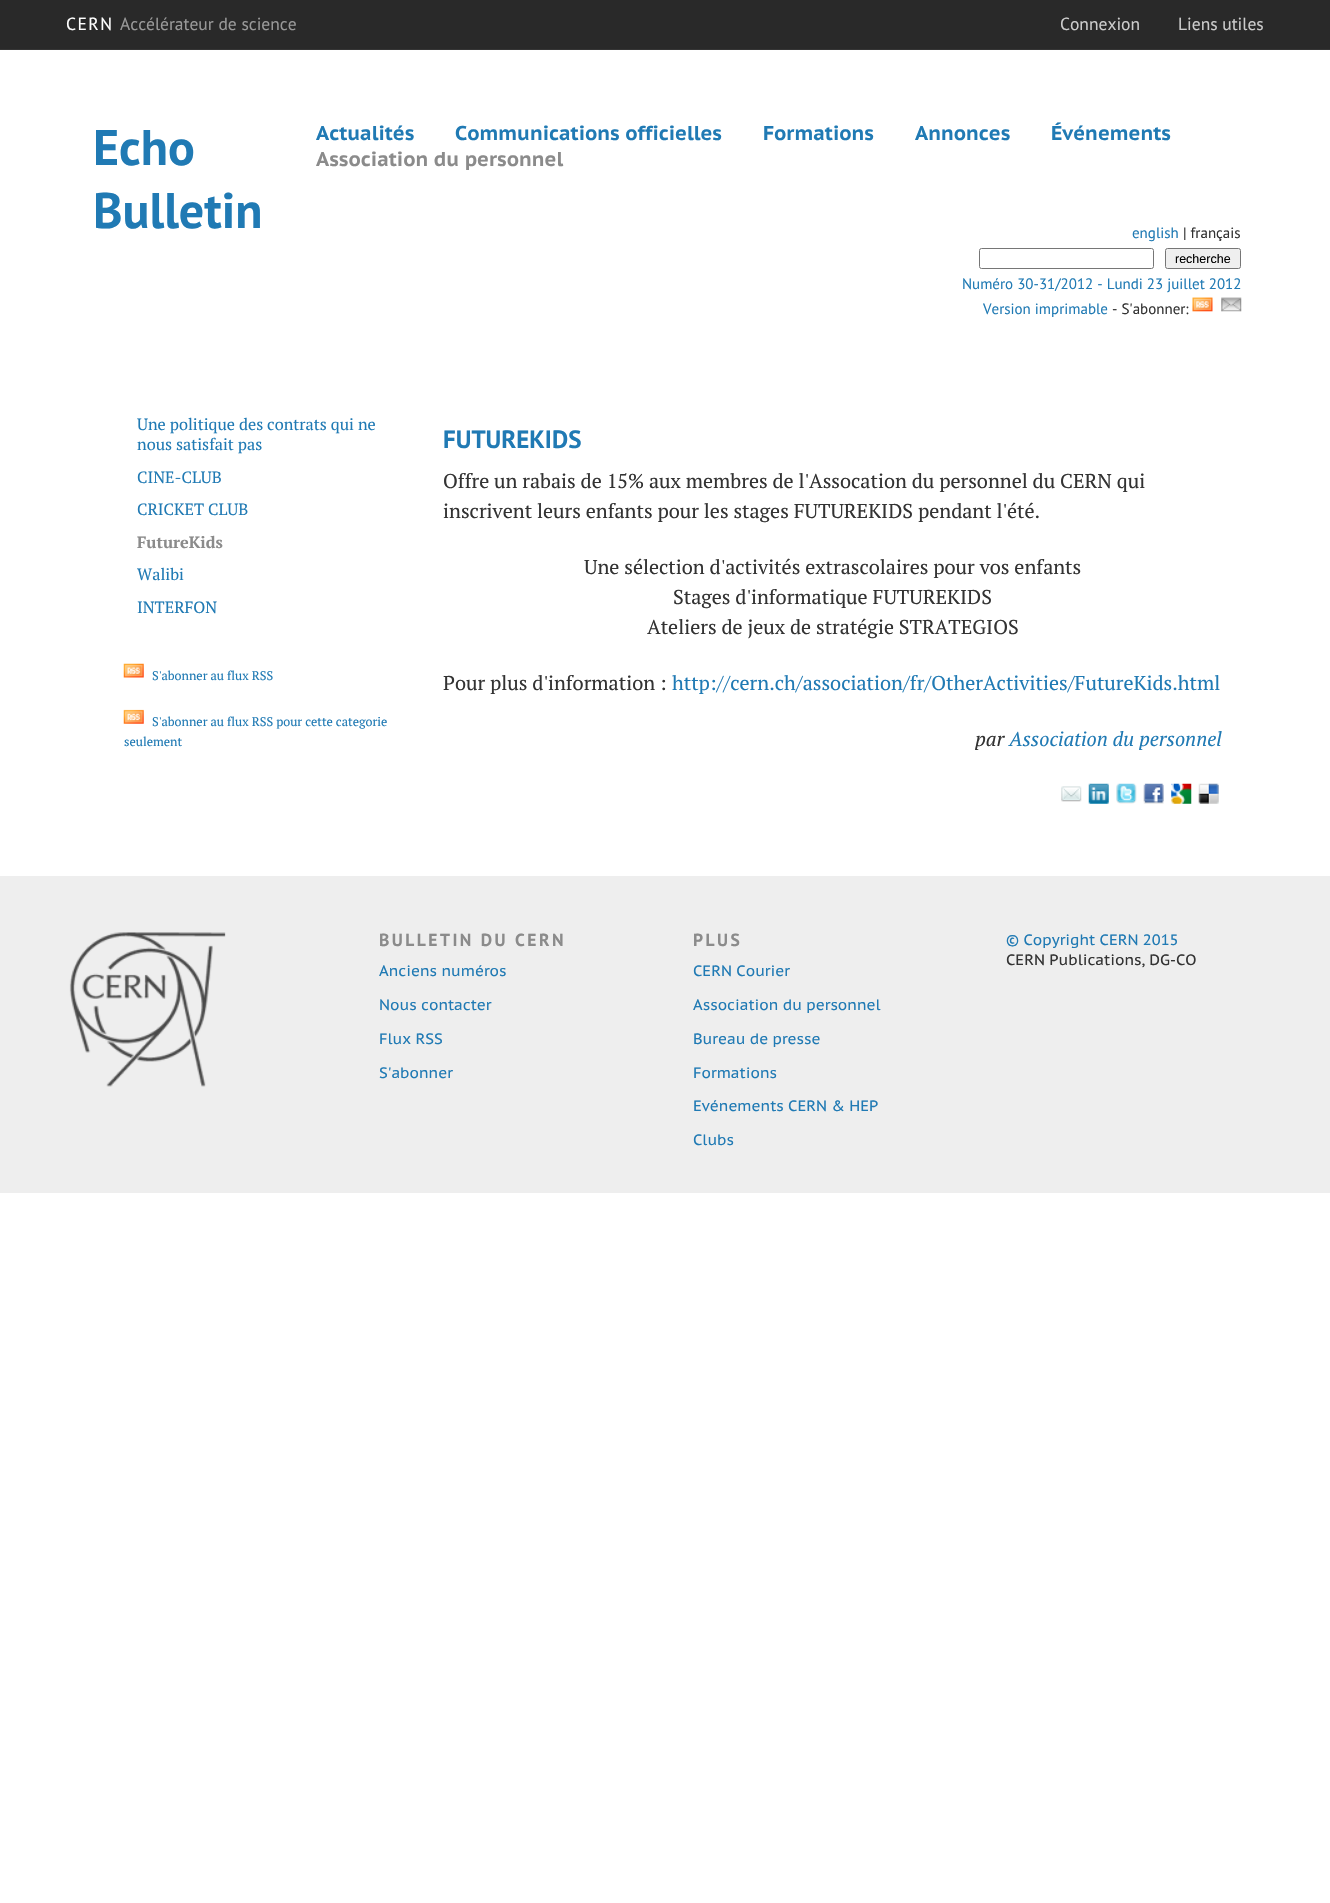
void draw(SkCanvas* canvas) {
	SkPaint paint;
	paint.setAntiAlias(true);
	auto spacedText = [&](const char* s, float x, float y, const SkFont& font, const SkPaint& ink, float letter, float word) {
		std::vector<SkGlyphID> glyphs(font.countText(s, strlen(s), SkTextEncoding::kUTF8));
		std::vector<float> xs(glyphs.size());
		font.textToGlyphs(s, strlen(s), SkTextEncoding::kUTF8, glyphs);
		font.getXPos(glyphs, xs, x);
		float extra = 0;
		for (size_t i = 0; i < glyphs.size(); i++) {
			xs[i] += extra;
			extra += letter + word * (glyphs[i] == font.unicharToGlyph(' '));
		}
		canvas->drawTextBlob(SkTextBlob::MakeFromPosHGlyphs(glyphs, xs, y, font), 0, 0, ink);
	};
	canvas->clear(0xffffffff);
	paint.setColor(0xff292929);
	canvas->drawRect(SkRect::MakeXYWH(0, 0, 1330, 49), paint);
	paint.setColor(0xff353535);
	canvas->drawRect(SkRect::MakeXYWH(0, 49, 1330, 1), paint);
	SkFont f1(fontMgr->matchFamilyStyle("PT Sans", SkFontStyle::Normal()), 17.5);
	f1.setSubpixel(true);
	paint.setColor(0xffffffff);
	spacedText("CERN", 66, 30, f1, paint, 1.5, 0);
	paint.setColor(0xff999999);
	canvas->drawString("Accélérateur de science", 120, 30, f1, paint);
	paint.setColor(0xffcccccc);
	canvas->drawString("Connexion", 1060, 30, f1, paint);
	canvas->drawString("Liens utiles", 1178, 30, f1, paint);
	SkFont f2(fontMgr->matchFamilyStyle("PT Sans", SkFontStyle::Bold()), 50);
	f2.setSubpixel(true);
	paint.setColor(0xff207ab4);
	canvas->drawString("Echo", 93, 165, f2, paint);
	canvas->drawString("Bulletin", 93, 228, f2, paint);
	SkFont f3(fontMgr->matchFamilyStyle("PT Sans Caption", SkFontStyle::Bold()), 20);
	f3.setSubpixel(true);
	canvas->drawString("Actualités", 316, 140, f3, paint);
	canvas->drawString("Communications officielles", 455, 140, f3, paint);
	canvas->drawString("Formations", 763, 140, f3, paint);
	canvas->drawString("Annonces", 915, 140, f3, paint);
	canvas->drawString("Événements", 1051, 140, f3, paint);
	paint.setColor(0xff8b8b8b);
	canvas->drawString("Association du personnel", 316, 166, f3, paint);
	SkFont f4(fontMgr->matchFamilyStyle("PT Sans", SkFontStyle::Normal()), 15);
	f4.setSubpixel(true);
	paint.setColor(0xff207ab4);
	canvas->drawString("english", 1132, 238, f4, paint);
	paint.setColor(0xff333333);
	canvas->drawString("| français", 1183, 238, f4, paint);
	paint.setStroke(true);
	paint.setStrokeWidth(1);
	paint.setColor(0xff767676);
	canvas->drawRoundRect(SkRect::MakeXYWH(979.5, 248.5, 174, 20), 2, 2, paint);
	paint.setStroke(false);
	paint.setColor(0xffefefef);
	canvas->drawRoundRect(SkRect::MakeXYWH(1165.5, 248.5, 75, 20), 2, 2, paint);
	paint.setStroke(true);
	paint.setColor(0xff767676);
	canvas->drawRoundRect(SkRect::MakeXYWH(1165.5, 248.5, 75, 20), 2, 2, paint);
	SkFont f5(fontMgr->matchFamilyStyle("Liberation Sans", SkFontStyle::Normal()), 12.5);
	f5.setSubpixel(true);
	paint.setStroke(false);
	paint.setColor(0xff000000);
	canvas->drawString("recherche", 1175, 263, f5, paint);
	paint.setColor(0xff207ab4);
	canvas->drawString("Numéro 30-31/2012 - Lundi 23 juillet 2012", 962, 289, f4, paint);
	canvas->drawString("Version imprimable", 983, 314, f4, paint);
	paint.setColor(0xff333333);
	canvas->drawString("- S'abonner:", 1112, 314, f4, paint);
	canvas->drawImageRect(SkImages::DeferredFromEncodedData(SkData::MakeFromFileName("img1.png")), SkRect::MakeXYWH(1192, 297, 21, 15), SkSamplingOptions());
	canvas->drawImageRect(SkImages::DeferredFromEncodedData(SkData::MakeFromFileName("img2.png")), SkRect::MakeXYWH(1221, 297, 21, 15), SkSamplingOptions());
	SkFont f6(fontMgr->matchFamilyStyle("PT Serif", SkFontStyle::Normal()), 16.25);
	f6.setSubpixel(true);
	paint.setColor(0xff207ab4);
	canvas->drawString("Une politique des contrats qui ne", 137, 430, f6, paint);
	canvas->drawString("nous satisfait pas", 137, 450, f6, paint);
	canvas->drawString("CINE-CLUB", 137, 483, f6, paint);
	canvas->drawString("CRICKET CLUB", 137, 515, f6, paint);
	SkFont f7(fontMgr->matchFamilyStyle("PT Serif", SkFontStyle::Bold()), 16.25);
	f7.setSubpixel(true);
	paint.setColor(0xff8b8b8b);
	canvas->drawString("FutureKids", 137, 548, f7, paint);
	paint.setColor(0xff207ab4);
	canvas->drawString("Walibi", 137, 580, f6, paint);
	canvas->drawString("INTERFON", 137, 613, f6, paint);
	canvas->drawImageRect(SkImages::DeferredFromEncodedData(SkData::MakeFromFileName("img3.png")), SkRect::MakeXYWH(123, 663, 21, 15), SkSamplingOptions());
	SkFont f8(fontMgr->matchFamilyStyle("PT Serif", SkFontStyle::Normal()), 12.5);
	f8.setSubpixel(true);
	canvas->drawString("S'abonner au flux RSS", 152, 680, f8, paint);
	canvas->drawImageRect(SkImages::DeferredFromEncodedData(SkData::MakeFromFileName("img4.png")), SkRect::MakeXYWH(123, 709, 21, 15), SkSamplingOptions());
	canvas->drawString("S'abonner au flux RSS pour cette categorie", 152, 726, f8, paint);
	canvas->drawString("seulement", 124, 746, f8, paint);
	SkFont f9(fontMgr->matchFamilyStyle("PT Sans", SkFontStyle::Bold()), 25);
	f9.setSubpixel(true);
	canvas->drawString("FUTUREKIDS", 443, 448, f9, paint);
	SkFont f10(fontMgr->matchFamilyStyle("PT Serif", SkFontStyle::Normal()), 20);
	f10.setSubpixel(true);
	paint.setColor(0xff333333);
	canvas->drawString("Offre un rabais de 15% aux membres de l'Assocation du personnel du CERN qui", 443, 488, f10, paint);
	canvas->drawString("inscrivent leurs enfants pour les stages FUTUREKIDS pendant l'été.", 443, 518, f10, paint);
	canvas->drawString("Une sélection d'activités extrascolaires pour vos enfants", 584, 574, f10, paint);
	canvas->drawString("Stages d'informatique FUTUREKIDS", 673, 604, f10, paint);
	canvas->drawString("Ateliers de jeux de stratégie STRATEGIOS", 647, 634, f10, paint);
	canvas->drawString("Pour plus d'information :", 443, 690, f10, paint);
	paint.setColor(0xff207ab4);
	canvas->drawString("http://cern.ch/association/fr/OtherActivities/FutureKids.html", 672, 690, f10, paint);
	SkFont f11(fontMgr->matchFamilyStyle("PT Serif", SkFontStyle::Italic()), 20);
	f11.setSubpixel(true);
	paint.setColor(0xff333333);
	canvas->drawString("par", 975, 746, f11, paint);
	paint.setColor(0xff207ab4);
	canvas->drawString("Association du personnel", 1009, 746, f11, paint);
	canvas->drawImageRect(SkImages::DeferredFromEncodedData(SkData::MakeFromFileName("img5.png")), SkRect::MakeXYWH(1061, 786, 21, 16), SkSamplingOptions());
	canvas->drawImageRect(SkImages::DeferredFromEncodedData(SkData::MakeFromFileName("img6.png")), SkRect::MakeXYWH(1088, 783, 21, 21), SkSamplingOptions());
	canvas->drawImageRect(SkImages::DeferredFromEncodedData(SkData::MakeFromFileName("img7.png")), SkRect::MakeXYWH(1116, 783, 21, 21), SkSamplingOptions());
	canvas->drawImageRect(SkImages::DeferredFromEncodedData(SkData::MakeFromFileName("img8.png")), SkRect::MakeXYWH(1143, 783, 21, 21), SkSamplingOptions());
	canvas->drawImageRect(SkImages::DeferredFromEncodedData(SkData::MakeFromFileName("img9.png")), SkRect::MakeXYWH(1171, 783, 21, 21), SkSamplingOptions());
	canvas->drawImageRect(SkImages::DeferredFromEncodedData(SkData::MakeFromFileName("img10.png")), SkRect::MakeXYWH(1198, 783, 21, 21), SkSamplingOptions());
	paint.setColor(0xffeeeeee);
	canvas->drawRect(SkRect::MakeXYWH(0, 876, 1330, 317), paint);
	canvas->drawImageRect(SkImages::DeferredFromEncodedData(SkData::MakeFromFileName("img11.png")), SkRect::MakeXYWH(69, 932, 157, 155), SkSamplingOptions());
	SkFont f12(fontMgr->matchFamilyStyle("PT Sans", SkFontStyle::Bold()), 17.5);
	f12.setSubpixel(true);
	paint.setColor(0xff8b8b8b);
	spacedText("BULLETIN DU CERN", 379, 946, f12, paint, 2.5, 0);
	SkFont f13(fontMgr->matchFamilyStyle("PT Sans Caption", SkFontStyle::Normal()), 15);
	f13.setSubpixel(true);
	paint.setColor(0xff207ab4);
	canvas->drawString("Anciens numéros", 379, 976, f13, paint);
	canvas->drawString("Nous contacter", 379, 1010, f13, paint);
	canvas->drawString("Flux RSS", 379, 1044, f13, paint);
	canvas->drawString("S'abonner", 379, 1078, f13, paint);
	paint.setColor(0xff8b8b8b);
	spacedText("PLUS", 693, 946, f12, paint, 2.5, 0);
	paint.setColor(0xff207ab4);
	canvas->drawString("CERN Courier", 693, 976, f13, paint);
	canvas->drawString("Association du personnel", 693, 1010, f13, paint);
	canvas->drawString("Bureau de presse", 693, 1044, f13, paint);
	canvas->drawString("Formations", 693, 1078, f13, paint);
	canvas->drawString("Evénements CERN & HEP", 693, 1111, f13, paint);
	canvas->drawString("Clubs", 693, 1145, f13, paint);
	canvas->drawString("© Copyright CERN 2015", 1006, 945, f13, paint);
	paint.setColor(0xff333333);
	canvas->drawString("CERN Publications, DG-CO", 1006, 965, f13, paint);
}
